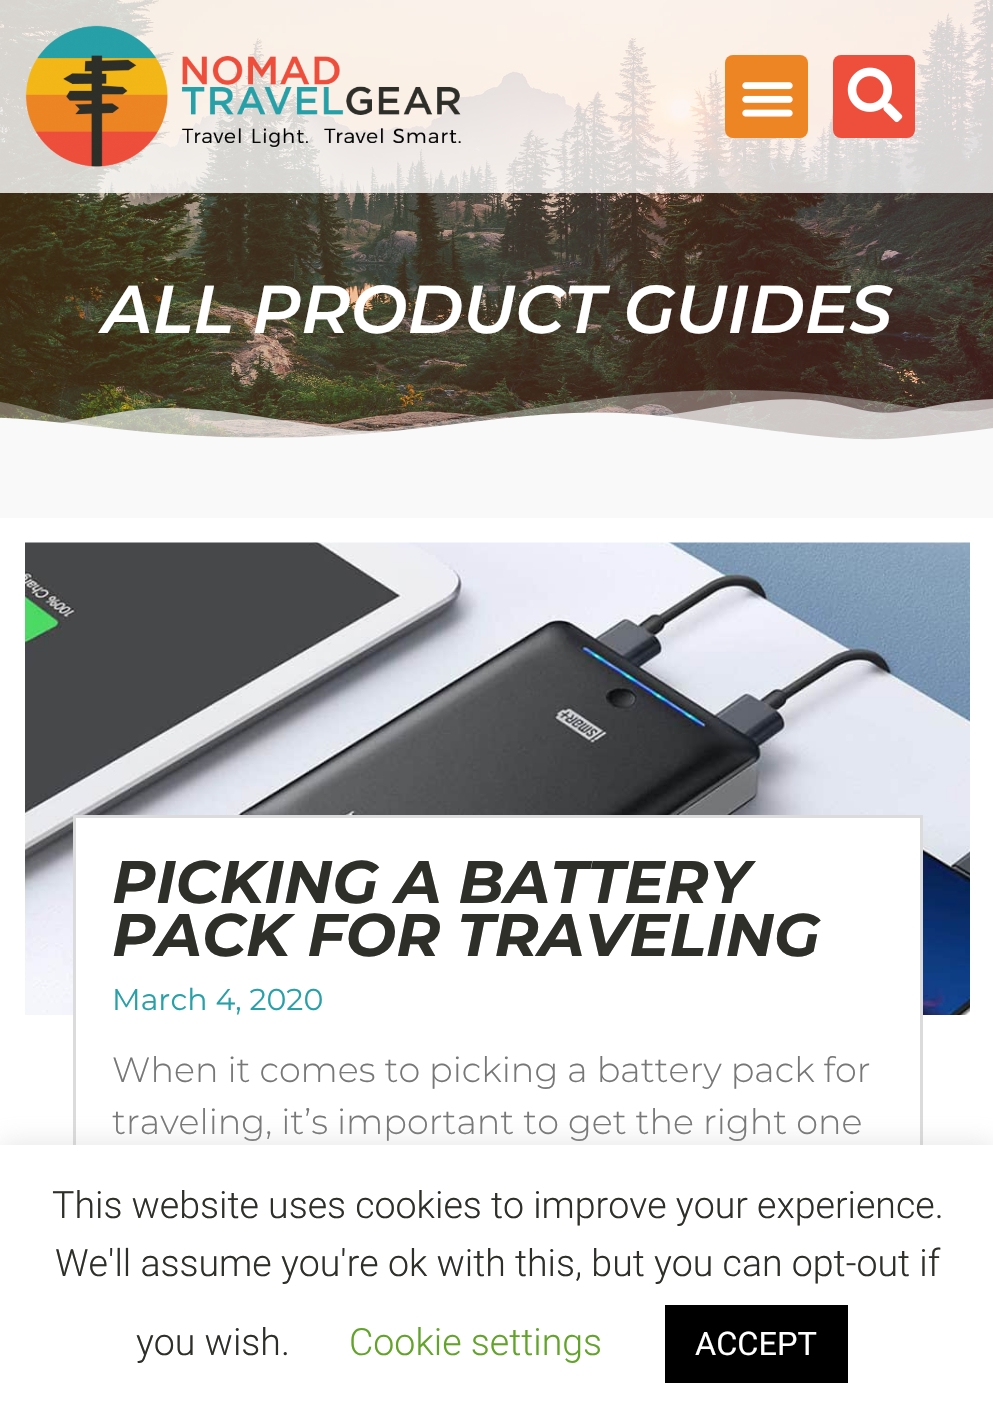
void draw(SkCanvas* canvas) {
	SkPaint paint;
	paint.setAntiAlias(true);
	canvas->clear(0xffffffff);
	canvas->drawImageRect(SkImages::DeferredFromEncodedData(SkData::MakeFromFileName("img4.png")), SkRect::MakeXYWH(0, 0, 993, 440), SkSamplingOptions());
	{
		const SkColor colors[] = {0x40ed8524, 0x40ee4f3c};
		const float stops[] = {0, 1};
		const SkPoint ends[] = {{0, 221}, {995, 221}};
		paint.setShader(SkGradientShader::MakeLinear(ends, colors, stops, 2, SkTileMode::kClamp));
		paint.setAlpha(255);
	}
	canvas->drawRect(SkRect::MakeXYWH(0, 0, 993, 440), paint);
	paint.setShader(nullptr);
	paint.setColor(0xccffffff);
	canvas->drawRect(SkRect::MakeXYWH(0, 0, 993, 193), paint);
	canvas->drawImageRect(SkImages::DeferredFromEncodedData(SkData::MakeFromFileName("img1.png")), SkRect::MakeXYWH(25, 25, 436, 142), SkSamplingOptions());
	paint.setColor(0xffed8524);
	canvas->drawRoundRect(SkRect::MakeXYWH(725, 55, 83, 83), 8, 8, paint);
	canvas->drawImageRect(SkImages::DeferredFromEncodedData(SkData::MakeFromFileName("img2.png")), SkRect::MakeXYWH(742, 82, 51, 35), SkSamplingOptions());
	paint.setColor(0xffee4f3c);
	canvas->drawRoundRect(SkRect::MakeXYWH(833, 55, 82, 83), 8, 8, paint);
	canvas->drawImageRect(SkImages::DeferredFromEncodedData(SkData::MakeFromFileName("img3.png")), SkRect::MakeXYWH(847, 67, 56, 56), SkSamplingOptions());
	SkFont f1(fontMgr->matchFamilyStyle("Montserrat", SkFontStyle(600, SkFontStyle::kNormal_Width, SkFontStyle::kItalic_Slant)), 67.5);
	f1.setSubpixel(true);
	paint.setColor(0xffffffff);
	canvas->drawString("ALL PRODUCT GUIDES", 102, 333, f1, paint);
	canvas->drawImageRect(SkImages::DeferredFromEncodedData(SkData::MakeFromFileName("img5.png")), SkRect::MakeXYWH(0, 390, 993, 53), SkSamplingOptions());
	{
		const SkColor colors[] = {0xfff9f9f9, 0xffffffff};
		const float stops[] = {0, 1};
		const SkPoint ends[] = {{497, 443}, {498, 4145}};
		paint.setShader(SkGradientShader::MakeLinear(ends, colors, stops, 2, SkTileMode::kClamp));
		paint.setAlpha(255);
	}
	canvas->drawRect(SkRect::MakeXYWH(0, 443, 993, 75), paint);
	canvas->drawImageRect(SkImages::DeferredFromEncodedData(SkData::MakeFromFileName("img6.png")), SkRect::MakeXYWH(25, 542, 945, 473), SkSamplingOptions());
	paint.setShader(nullptr);
	paint.setColor(0xffffffff);
	canvas->drawRect(SkRect::MakeXYWH(76, 818, 844, 197), paint);
	paint.setStroke(true);
	paint.setStrokeWidth(3);
	paint.setColor(0xffdbdbdb);
	canvas->drawRect(SkRect::MakeXYWH(74.5, 816.5, 847, 572), paint);
	SkFont f2(fontMgr->matchFamilyStyle("Montserrat", SkFontStyle::BoldItalic()), 60);
	f2.setSubpixel(true);
	paint.setStroke(false);
	paint.setColor(0xff2f2f2a);
	canvas->drawString("PICKING A BATTERY", 112, 903, f2, paint);
	canvas->drawString("PACK FOR TRAVELING", 112, 956, f2, paint);
	SkFont f3(fontMgr->matchFamilyStyle("Montserrat", SkFontStyle::Normal()), 30);
	f3.setSubpixel(true);
	paint.setColor(0xff28a0a8);
	canvas->drawString("March 4, 2020", 112, 1010, f3, paint);
	SkFont f4(fontMgr->matchFamilyStyle("Montserrat", SkFontStyle(300, SkFontStyle::kNormal_Width, SkFontStyle::kUpright_Slant)), 35);
	f4.setSubpixel(true);
	paint.setColor(0xff777777);
	canvas->drawString("When it comes to picking a battery pack for", 112, 1082, f4, paint);
	canvas->drawString("traveling, it’s important to get the right one", 112, 1134, f4, paint);
	paint.setColor(0x4dacabab);
	paint.setMaskFilter(SkMaskFilter::MakeBlur(kNormal_SkBlurStyle, 12.5));
	canvas->drawRect(SkRect::MakeXYWH(0, 1143, 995, 280), paint);
	paint.setMaskFilter(nullptr);
	paint.setColor(0xffffffff);
	canvas->drawRect(SkRect::MakeXYWH(0, 1145, 993, 280), paint);
	SkFont f5(fontMgr->matchFamilyStyle("Roboto", SkFontStyle(300, SkFontStyle::kNormal_Width, SkFontStyle::kUpright_Slant)), 37.5);
	f5.setSubpixel(true);
	paint.setColor(0xff2f2f2a);
	canvas->drawString("This website uses cookies to improve your experience.", 52, 1218, f5, paint);
	canvas->drawString("We'll assume you're ok with this, but you can opt-out if", 55, 1276, f5, paint);
	canvas->drawString("you wish.", 136, 1355, f5, paint);
	paint.setColor(0xff62a329);
	canvas->drawString("Cookie settings", 349, 1355, f5, paint);
	paint.setColor(0xff000000);
	canvas->drawRect(SkRect::MakeXYWH(665, 1305, 183, 78), paint);
	SkFont f6(fontMgr->matchFamilyStyle("Roboto", SkFontStyle::Normal()), 32.5);
	f6.setSubpixel(true);
	paint.setColor(0xffffffff);
	canvas->drawString("ACCEPT", 695, 1355, f6, paint);
}
